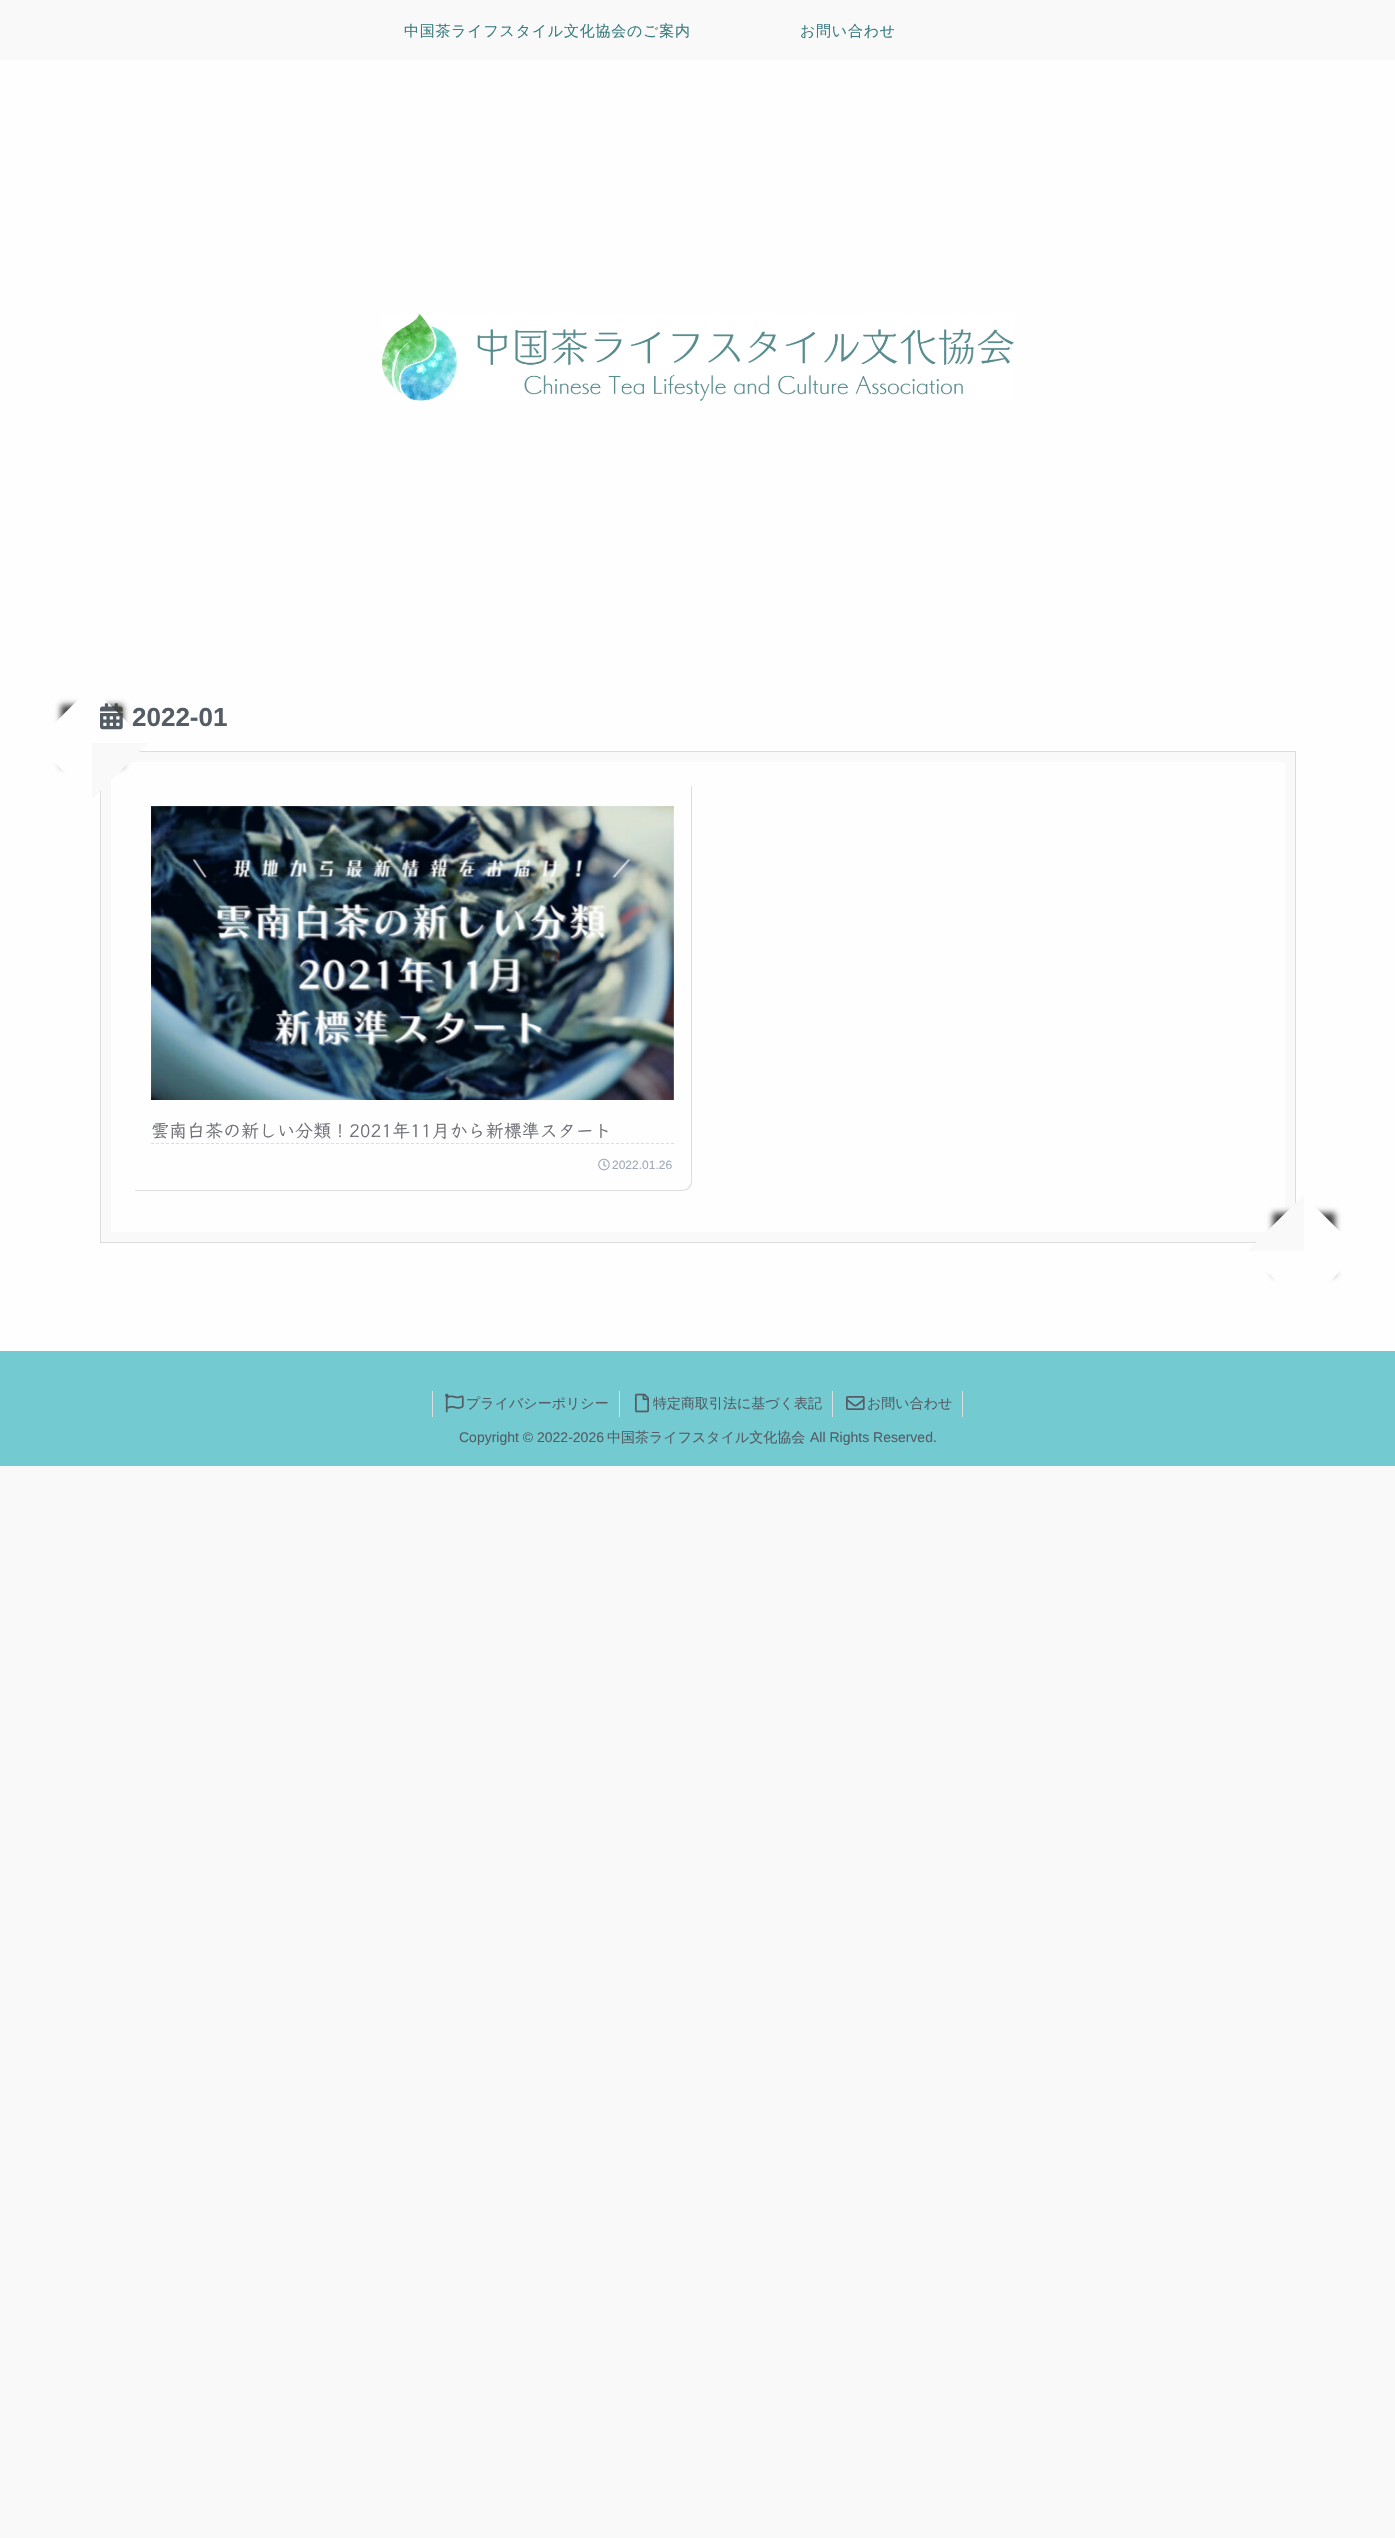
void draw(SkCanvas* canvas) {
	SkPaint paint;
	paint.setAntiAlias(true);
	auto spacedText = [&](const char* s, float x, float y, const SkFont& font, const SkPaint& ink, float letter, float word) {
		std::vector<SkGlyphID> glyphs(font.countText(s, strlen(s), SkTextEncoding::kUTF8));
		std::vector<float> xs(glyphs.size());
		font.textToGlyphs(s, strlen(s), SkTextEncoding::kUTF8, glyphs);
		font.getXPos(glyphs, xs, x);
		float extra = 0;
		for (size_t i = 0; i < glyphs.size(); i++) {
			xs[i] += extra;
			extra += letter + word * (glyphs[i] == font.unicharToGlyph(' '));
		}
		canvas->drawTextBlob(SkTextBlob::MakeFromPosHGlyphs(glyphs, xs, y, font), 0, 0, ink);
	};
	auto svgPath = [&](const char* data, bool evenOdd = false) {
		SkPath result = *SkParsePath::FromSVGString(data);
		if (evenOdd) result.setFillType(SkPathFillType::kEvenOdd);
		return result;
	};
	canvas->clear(0xfff9f9f9);
	paint.setColor(0xfffefefe);
	canvas->drawRect(SkRect::MakeXYWH(0, 60, 1395, 1291), paint);
	SkFont f1(fontMgr->matchFamilyStyle("WenQuanYi Zen Hei", SkFontStyle(500, SkFontStyle::kNormal_Width, SkFontStyle::kUpright_Slant)), 15);
	f1.setSubpixel(true);
	paint.setColor(0xff397d7f);
	spacedText("中国茶ライフスタイル文化協会のご案内", 404, 36, f1, paint, 0.75, 0);
	spacedText("お問い合わせ", 800, 36, f1, paint, 0.75, 0);
	canvas->drawImageRect(SkImages::DeferredFromEncodedData(SkData::MakeFromFileName("img1.png")), SkRect::MakeXYWH(382, 313, 632, 88), SkSamplingOptions());
	canvas->drawImageRect(SkImages::DeferredFromEncodedData(SkData::MakeFromFileName("img2.png")), SkRect::MakeXYWH(100, 703, 23, 27), SkSamplingOptions());
	SkFont f2(fontMgr->matchFamilyStyle("Liberation Sans", SkFontStyle::Bold()), 26);
	f2.setSubpixel(true);
	paint.setColor(0xff545d65);
	canvas->drawString("2022-01", 132, 726, f2, paint);
	paint.setStroke(true);
	paint.setStrokeWidth(10);
	paint.setColor(0xfff9f9f9);
	canvas->drawRect(SkRect::MakeXYWH(106, 757, 1184, 480), paint);
	paint.setStrokeWidth(1);
	paint.setColor(0xffdddddd);
	canvas->drawRect(SkRect::MakeXYWH(100.5, 751.5, 1195, 491), paint);
	canvas->save();
	canvas->clipPath(svgPath("M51 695H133V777H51ZM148 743L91.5 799.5L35 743L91.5 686Z", true), true);
	paint.setStroke(false);
	paint.setColor(0xff41403e);
	paint.setMaskFilter(SkMaskFilter::MakeBlur(kNormal_SkBlurStyle, 3));
	canvas->drawRect(SkRect::MakeXYWH(61, 705, 62, 62), paint);
	paint.setMaskFilter(nullptr);
	canvas->restore();
	paint.setColor(0xffdddddd);
	canvas->drawPath(svgPath("M135 786H692V1181C692 1187 688 1191 682 1191H135ZM135 786H691V1181C691 1186 687 1190 682 1190H135Z", true), paint);
	paint.setColor(0xfff9f9f9);
	canvas->drawPath(svgPath("M148 743L92 799V743Z"), paint);
	canvas->drawImageRect(SkImages::DeferredFromEncodedData(SkData::MakeFromFileName("img3.png")), SkRect::MakeXYWH(151, 806, 523, 294), SkSamplingOptions());
	paint.setStroke(true);
	paint.setColor(0xffdddddd);
	paint.setPathEffect(SkDashPathEffect::Make({{3, 2}}, 0));
	canvas->drawPath(svgPath("M151 1143.5H674"), paint);
	paint.setPathEffect(nullptr);
	SkFont f3(fontMgr->matchFamilyStyle("Klee One", SkFontStyle(600, SkFontStyle::kNormal_Width, SkFontStyle::kUpright_Slant)), 18);
	f3.setSubpixel(true);
	paint.setStroke(false);
	paint.setColor(0xff6d7077);
	canvas->drawString("雲南白茶の新しい分類！2021年11月から新標準スタート", 151, 1137, f3, paint);
	canvas->drawImageRect(SkImages::DeferredFromEncodedData(SkData::MakeFromFileName("img4.png")), SkRect::MakeXYWH(598, 1158, 12, 13), SkSamplingOptions());
	SkFont f4(fontMgr->matchFamilyStyle("Liberation Sans", SkFontStyle::Normal()), 12);
	f4.setSubpixel(true);
	paint.setColor(0xffa0a9bb);
	canvas->drawString("2022.01.26", 612, 1169, f4, paint);
	canvas->save();
	canvas->clipPath(svgPath("M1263 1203H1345V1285H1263ZM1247 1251.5L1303.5 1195L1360 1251.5L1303.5 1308Z", true), true);
	paint.setColor(0xff41403e);
	paint.setMaskFilter(SkMaskFilter::MakeBlur(kNormal_SkBlurStyle, 3));
	canvas->drawRect(SkRect::MakeXYWH(1273, 1213, 62, 62), paint);
	paint.setMaskFilter(nullptr);
	canvas->restore();
	paint.setColor(0xfff9f9f9);
	canvas->drawPath(svgPath("M1247 1251L1304 1195V1251Z"), paint);
	paint.setColor(0xff73cad1);
	canvas->drawRect(SkRect::MakeXYWH(0, 1351, 1395, 115), paint);
	paint.setColor(0xffdddddd);
	canvas->drawRect(SkRect::MakeXYWH(432, 1391, 1, 26), paint);
	canvas->drawImageRect(SkImages::DeferredFromEncodedData(SkData::MakeFromFileName("img5.png")), SkRect::MakeXYWH(445, 1393, 19, 20), SkSamplingOptions());
	SkFont f5(fontMgr->matchFamilyStyle("WenQuanYi Zen Hei", SkFontStyle(500, SkFontStyle::kNormal_Width, SkFontStyle::kUpright_Slant)), 14);
	f5.setSubpixel(true);
	paint.setColor(0xff545d65);
	canvas->drawString("プライバシーポリシー", 466, 1408, f5, paint);
	paint.setColor(0xffdddddd);
	canvas->drawRect(SkRect::MakeXYWH(619, 1391, 1, 26), paint);
	canvas->drawImageRect(SkImages::DeferredFromEncodedData(SkData::MakeFromFileName("img6.png")), SkRect::MakeXYWH(635, 1393, 14, 20), SkSamplingOptions());
	paint.setColor(0xff545d65);
	canvas->drawString("特定商取引法に基づく表記", 653, 1408, f5, paint);
	paint.setColor(0xffdddddd);
	canvas->drawRect(SkRect::MakeXYWH(962, 1391, 1, 26), paint);
	canvas->drawRect(SkRect::MakeXYWH(832, 1391, 1, 26), paint);
	canvas->drawImageRect(SkImages::DeferredFromEncodedData(SkData::MakeFromFileName("img7.png")), SkRect::MakeXYWH(846, 1396, 19, 14), SkSamplingOptions());
	paint.setColor(0xff545d65);
	canvas->drawString("お問い合わせ", 867, 1408, f5, paint);
	SkFont f6(fontMgr->matchFamilyStyle("Liberation Sans", SkFontStyle::Normal()), 14);
	f6.setSubpixel(true);
	canvas->drawString("Copyright © 2022-2026", 459, 1442, f6, paint);
	canvas->drawString("中国茶ライフスタイル文化協会", 607, 1442, f5, paint);
	canvas->drawString("All Rights Reserved.", 810, 1442, f6, paint);
}
